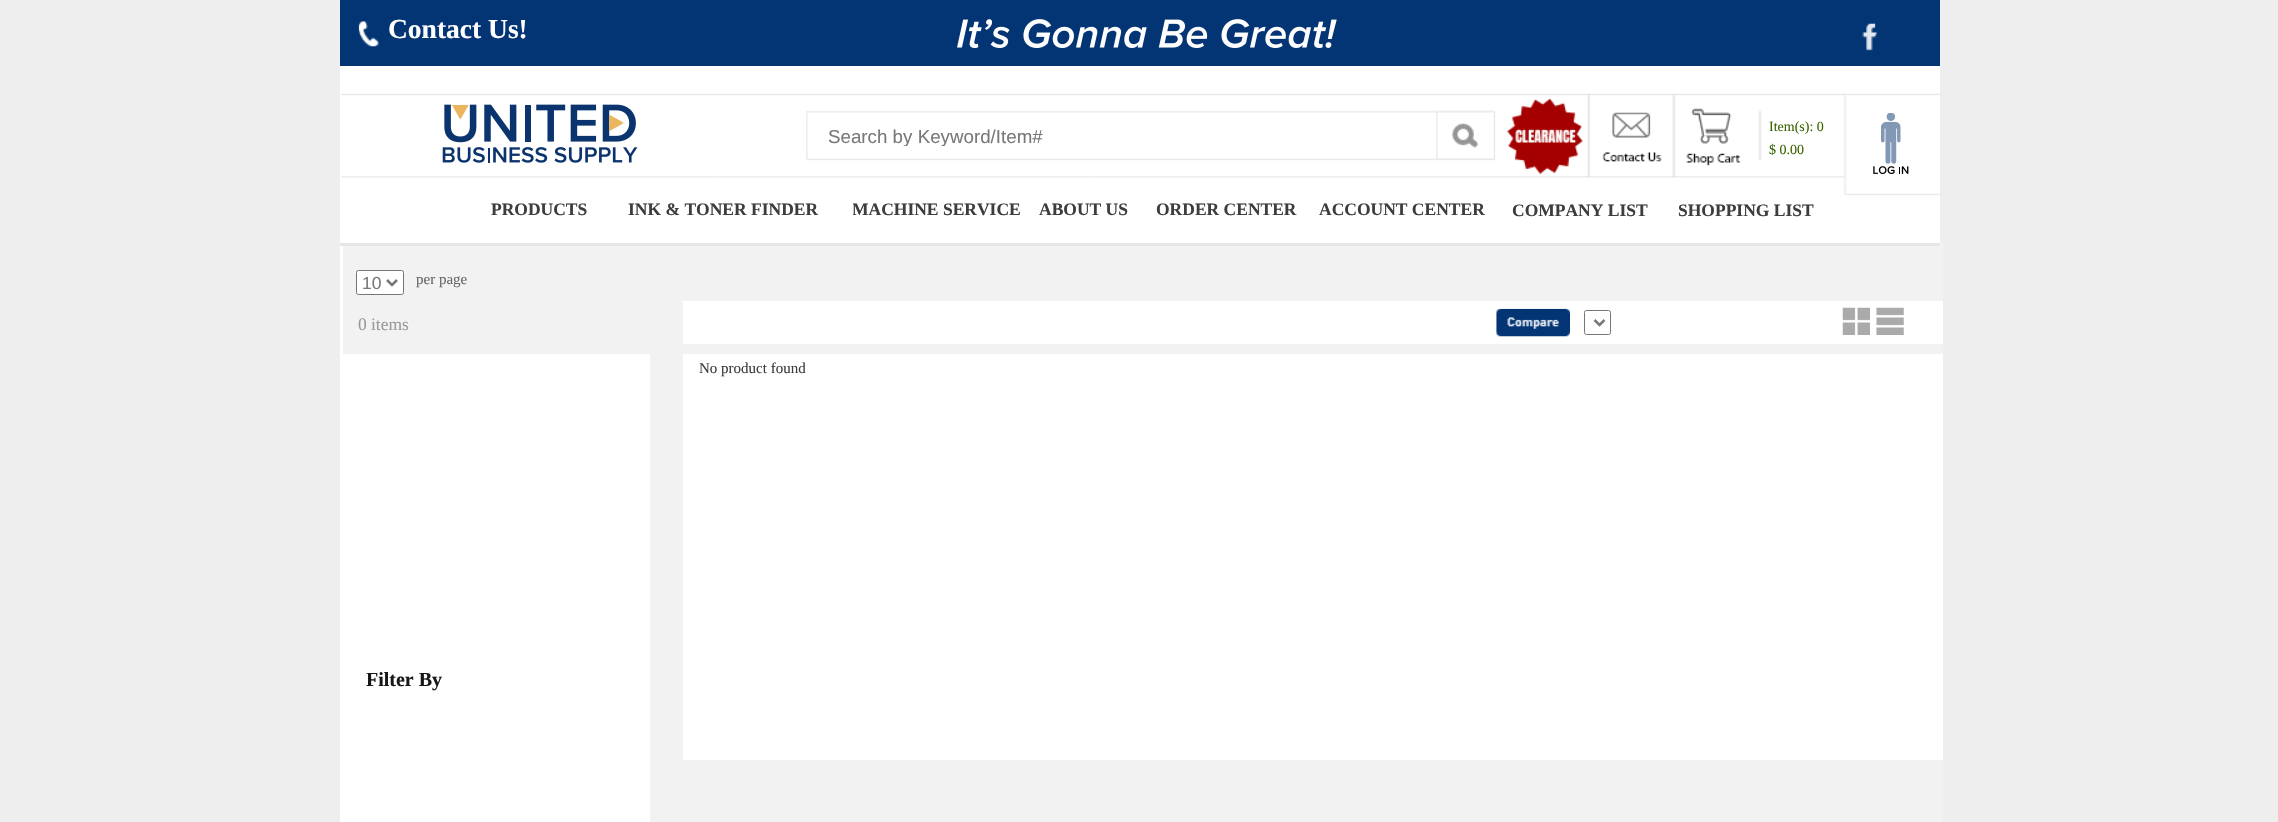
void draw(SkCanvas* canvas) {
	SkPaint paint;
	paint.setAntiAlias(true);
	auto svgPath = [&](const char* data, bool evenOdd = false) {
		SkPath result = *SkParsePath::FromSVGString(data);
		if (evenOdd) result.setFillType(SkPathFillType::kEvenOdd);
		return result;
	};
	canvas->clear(0xffeeeeee);
	paint.setColor(0xffffffff);
	canvas->drawRect(SkRect::MakeXYWH(340, 66, 1600, 756), paint);
	paint.setColor(0xff033575);
	canvas->drawRect(SkRect::MakeXYWH(340, 0, 1600, 66), paint);
	canvas->drawImageRect(SkImages::DeferredFromEncodedData(SkData::MakeFromFileName("img1.png")), SkRect::MakeXYWH(358, 21, 21, 26), SkSamplingOptions());
	SkFont f1(fontMgr->matchFamilyStyle("Liberation Serif", SkFontStyle::Bold()), 27.5);
	f1.setSubpixel(true);
	paint.setColor(0xffffffff);
	canvas->drawString("Contact Us!", 388, 38, f1, paint);
	canvas->drawImageRect(SkImages::DeferredFromEncodedData(SkData::MakeFromFileName("img2.png")), SkRect::MakeXYWH(957, 19, 380, 29), SkSamplingOptions());
	canvas->drawImageRect(SkImages::DeferredFromEncodedData(SkData::MakeFromFileName("img3.png")), SkRect::MakeXYWH(1862, 22, 16, 29), SkSamplingOptions());
	SkFont f2(fontMgr->matchFamilyStyle("Liberation Serif", SkFontStyle::Normal()), 14);
	f2.setSubpixel(true);
	paint.setColor(0xff386500);
	canvas->drawString("Item(s): 0", 1769, 131, f2, paint);
	canvas->drawString("$ 0.00", 1769, 154, f2, paint);
	canvas->drawImageRect(SkImages::DeferredFromEncodedData(SkData::MakeFromFileName("img4.png")), SkRect::MakeXYWH(341, 93, 1600, 104), SkSamplingOptions());
	canvas->drawImageRect(SkImages::DeferredFromEncodedData(SkData::MakeFromFileName("img5.png")), SkRect::MakeXYWH(442, 104, 196, 59), SkSamplingOptions());
	canvas->drawImageRect(SkImages::DeferredFromEncodedData(SkData::MakeFromFileName("img6.png")), SkRect::MakeXYWH(1507, 98, 76, 76), SkSamplingOptions());
	canvas->drawImageRect(SkImages::DeferredFromEncodedData(SkData::MakeFromFileName("img7.png")), SkRect::MakeXYWH(1602, 112, 60, 50), SkSamplingOptions());
	canvas->drawImageRect(SkImages::DeferredFromEncodedData(SkData::MakeFromFileName("img8.png")), SkRect::MakeXYWH(1686, 108, 55, 58), SkSamplingOptions());
	canvas->drawImageRect(SkImages::DeferredFromEncodedData(SkData::MakeFromFileName("img9.png")), SkRect::MakeXYWH(1873, 113, 36, 61), SkSamplingOptions());
	canvas->save();
	canvas->clipRect(SkRect::MakeXYWH(829, 125, 569, 21));
	SkFont f3(fontMgr->matchFamilyStyle("Liberation Sans", SkFontStyle::Normal()), 18.75);
	f3.setSubpixel(true);
	paint.setColor(0xff787878);
	canvas->drawString("Search by Keyword/Item#", 828, 143, f3, paint);
	canvas->restore();
	canvas->drawImageRect(SkImages::DeferredFromEncodedData(SkData::MakeFromFileName("img10.png")), SkRect::MakeXYWH(1452, 123, 27, 25), SkSamplingOptions());
	paint.setColor(0xffffffff);
	canvas->drawRect(SkRect::MakeXYWH(773, 194, 786, 3), paint);
	SkFont f4(fontMgr->matchFamilyStyle("Liberation Serif", SkFontStyle::Bold()), 17.5);
	f4.setSubpixel(true);
	paint.setColor(0xff3d3d3d);
	canvas->drawString("PRODUCTS", 491, 215, f4, paint);
	canvas->drawString("INK & TONER FINDER", 628, 215, f4, paint);
	canvas->save();
	canvas->clipRect(SkRect::MakeXYWH(853, 200, 188, 38));
	canvas->drawString("MACHINE SERVICE", 852, 215, f4, paint);
	canvas->restore();
	canvas->drawString("ABOUT US", 1039, 215, f4, paint);
	canvas->drawString("ORDER CENTER", 1156, 215, f4, paint);
	canvas->drawString("ACCOUNT CENTER", 1319, 215, f4, paint);
	canvas->drawString("COMPANY LIST", 1512, 216, f4, paint);
	canvas->drawString("SHOPPING LIST", 1678, 216, f4, paint);
	paint.setColor(0xfff2f2f2);
	canvas->drawRect(SkRect::MakeXYWH(343, 243, 1600, 579), paint);
	paint.setColor(0xffe6e6e6);
	canvas->drawRect(SkRect::MakeXYWH(340, 243, 1600, 3), paint);
	paint.setColor(0xffffffff);
	canvas->drawRoundRect(SkRect::MakeXYWH(356.5, 270.5, 47, 24), 2, 2, paint);
	paint.setStroke(true);
	paint.setStrokeWidth(1);
	paint.setColor(0xff767676);
	canvas->drawRoundRect(SkRect::MakeXYWH(356.5, 270.5, 47, 24), 2, 2, paint);
	paint.setStrokeWidth(2.5);
	paint.setColor(0xff787878);
	canvas->drawPath(svgPath("M387 280L392 285L397 280"), paint);
	SkFont f5(fontMgr->matchFamilyStyle("Liberation Sans", SkFontStyle::Normal()), 17.5);
	f5.setSubpixel(true);
	paint.setStroke(false);
	canvas->drawString("10", 362, 289, f5, paint);
	SkFont f6(fontMgr->matchFamilyStyle("Liberation Serif", SkFontStyle::Normal()), 15);
	f6.setSubpixel(true);
	paint.setColor(0xff666666);
	canvas->drawString("per page", 416, 284, f6, paint);
	paint.setColor(0xffffffff);
	canvas->drawRect(SkRect::MakeXYWH(683, 301, 1260, 43), paint);
	SkFont f7(fontMgr->matchFamilyStyle("Liberation Serif", SkFontStyle::Normal()), 17.5);
	f7.setSubpixel(true);
	paint.setColor(0xff999999);
	canvas->drawString("0", 358, 330, f7, paint);
	canvas->drawString("items", 371, 330, f7, paint);
	canvas->drawImageRect(SkImages::DeferredFromEncodedData(SkData::MakeFromFileName("img11.png")), SkRect::MakeXYWH(1496, 308, 74, 29), SkSamplingOptions());
	paint.setStroke(true);
	paint.setStrokeWidth(1);
	paint.setColor(0xff767676);
	canvas->drawRoundRect(SkRect::MakeXYWH(1584.5, 310.5, 26, 24), 2, 2, paint);
	paint.setStrokeWidth(2.5);
	paint.setColor(0xff787878);
	canvas->drawPath(svgPath("M1594.5 320L1599.5 325L1604.5 320"), paint);
	canvas->drawImageRect(SkImages::DeferredFromEncodedData(SkData::MakeFromFileName("img12.png")), SkRect::MakeXYWH(1842, 307, 28, 28), SkSamplingOptions());
	canvas->drawImageRect(SkImages::DeferredFromEncodedData(SkData::MakeFromFileName("img13.png")), SkRect::MakeXYWH(1876, 307, 28, 28), SkSamplingOptions());
	paint.setStroke(false);
	paint.setColor(0xffffffff);
	canvas->drawRect(SkRect::MakeXYWH(343, 354, 307, 468), paint);
	canvas->drawRect(SkRect::MakeXYWH(683, 354, 1260, 406), paint);
	paint.setColor(0xff3d3d3d);
	canvas->drawString("No product found", 699, 373, f6, paint);
	SkFont f8(fontMgr->matchFamilyStyle("Liberation Serif", SkFontStyle::Bold()), 20);
	f8.setSubpixel(true);
	paint.setColor(0xff171717);
	canvas->drawString("Filter By", 366, 686, f8, paint);
}
